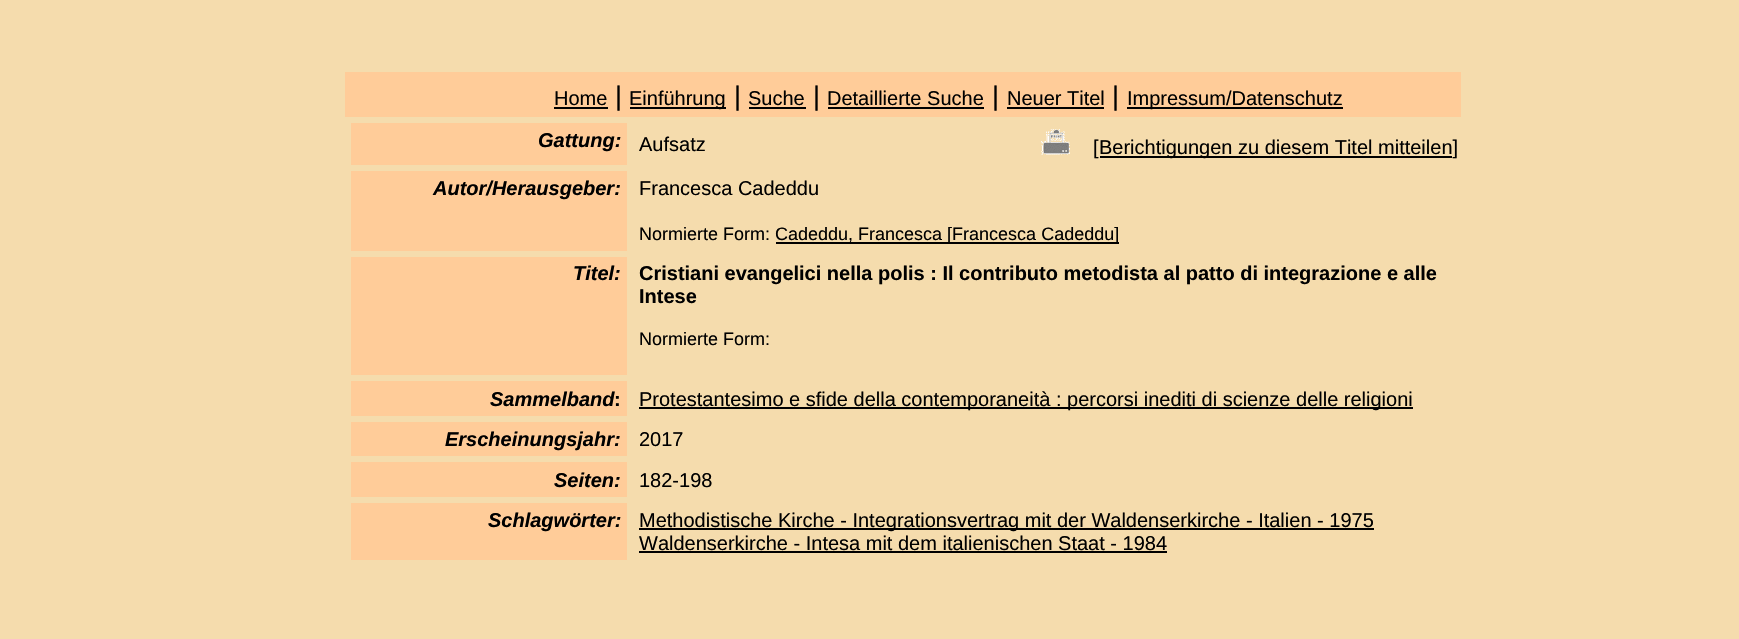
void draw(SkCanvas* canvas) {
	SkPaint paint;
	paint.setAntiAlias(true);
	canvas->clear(0xfff5dcad);
	paint.setColor(0xffffcc99);
	canvas->drawRect(SkRect::MakeXYWH(345, 72, 1116, 45), paint);
	SkFont f1(fontMgr->matchFamilyStyle("Liberation Sans", SkFontStyle::Normal()), 20);
	f1.setSubpixel(true);
	paint.setColor(0xff000000);
	canvas->drawString("Home", 554, 105, f1, paint);
	canvas->drawRect(SkRect::MakeXYWH(554, 107, 54, 2), paint);
	SkFont f2(fontMgr->matchFamilyStyle("Liberation Sans", SkFontStyle::Normal()), 27);
	f2.setSubpixel(true);
	canvas->drawString("|", 615, 105, f2, paint);
	canvas->drawRect(SkRect::MakeXYWH(630, 107, 96, 2), paint);
	canvas->drawString("Einführung", 629, 105, f1, paint);
	canvas->drawString("|", 734, 105, f2, paint);
	canvas->drawString("Suche", 748, 105, f1, paint);
	canvas->drawRect(SkRect::MakeXYWH(749, 107, 57, 2), paint);
	canvas->drawString("|", 813, 105, f2, paint);
	canvas->drawString("Detaillierte Suche", 827, 105, f1, paint);
	canvas->drawRect(SkRect::MakeXYWH(828, 107, 156, 2), paint);
	canvas->drawString("|", 992, 105, f2, paint);
	canvas->drawString("Neuer Titel", 1007, 105, f1, paint);
	canvas->drawRect(SkRect::MakeXYWH(1007, 107, 97, 2), paint);
	canvas->drawString("|", 1112, 105, f2, paint);
	canvas->drawRect(SkRect::MakeXYWH(1127, 107, 216, 2), paint);
	canvas->drawString("Impressum/Datenschutz", 1127, 105, f1, paint);
	paint.setColor(0xffffcc99);
	canvas->drawRect(SkRect::MakeXYWH(351, 123, 276, 42), paint);
	SkFont f3(fontMgr->matchFamilyStyle("Liberation Sans", SkFontStyle::BoldItalic()), 20);
	f3.setSubpixel(true);
	paint.setColor(0xff000000);
	canvas->drawString("Gattung:", 538, 147, f3, paint);
	canvas->drawString("Aufsatz", 639, 151, f1, paint);
	canvas->drawImageRect(SkImages::DeferredFromEncodedData(SkData::MakeFromFileName("img1.png")), SkRect::MakeXYWH(1041, 129, 29, 26), SkSamplingOptions());
	canvas->drawString("[", 1093, 154, f1, paint);
	canvas->drawRect(SkRect::MakeXYWH(1100, 156, 352, 2), paint);
	canvas->drawString("Berichtigungen zu diesem Titel mitteilen]", 1099, 154, f1, paint);
	paint.setColor(0xffffcc99);
	canvas->drawRect(SkRect::MakeXYWH(351, 171, 276, 80), paint);
	paint.setColor(0xff000000);
	canvas->drawString("Autor/Herausgeber:", 433, 195, f3, paint);
	canvas->drawString("Francesca Cadeddu", 639, 195, f1, paint);
	SkFont f4(fontMgr->matchFamilyStyle("Liberation Sans", SkFontStyle::Normal()), 18);
	f4.setSubpixel(true);
	canvas->drawString("Normierte Form:", 639, 240, f4, paint);
	canvas->drawRect(SkRect::MakeXYWH(776, 242, 343, 2), paint);
	canvas->drawString("Cadeddu, Francesca [Francesca Cadeddu]", 775, 240, f4, paint);
	paint.setColor(0xffffcc99);
	canvas->drawRect(SkRect::MakeXYWH(351, 257, 276, 118), paint);
	paint.setColor(0xff000000);
	canvas->drawString("Titel:", 573, 280, f3, paint);
	SkFont f5(fontMgr->matchFamilyStyle("Liberation Sans", SkFontStyle::Bold()), 20);
	f5.setSubpixel(true);
	canvas->drawString("Cristiani evangelici nella polis : Il contributo metodista al patto di integrazione e alle", 639, 280, f5, paint);
	canvas->drawString("Intese", 639, 303, f5, paint);
	canvas->drawString("Normierte Form:", 639, 345, f4, paint);
	paint.setColor(0xffffcc99);
	canvas->drawRect(SkRect::MakeXYWH(351, 381, 276, 35), paint);
	paint.setColor(0xff000000);
	canvas->drawString("Sammelband", 490, 406, f3, paint);
	canvas->drawString(":", 614, 406, f5, paint);
	canvas->drawRect(SkRect::MakeXYWH(639, 407, 774, 2), paint);
	canvas->drawString("Protestantesimo e sfide della contemporaneità : percorsi inediti di scienze delle religioni", 639, 406, f1, paint);
	paint.setColor(0xffffcc99);
	canvas->drawRect(SkRect::MakeXYWH(351, 422, 276, 34), paint);
	paint.setColor(0xff000000);
	canvas->drawString("Erscheinungsjahr:", 445, 446, f3, paint);
	canvas->drawString("2017", 639, 446, f1, paint);
	paint.setColor(0xffffcc99);
	canvas->drawRect(SkRect::MakeXYWH(351, 462, 276, 35), paint);
	paint.setColor(0xff000000);
	canvas->drawString("Seiten:", 554, 487, f3, paint);
	canvas->drawString("182-198", 639, 487, f1, paint);
	paint.setColor(0xffffcc99);
	canvas->drawRect(SkRect::MakeXYWH(351, 503, 276, 57), paint);
	paint.setColor(0xff000000);
	canvas->drawString("Schlagwörter:", 488, 527, f3, paint);
	canvas->drawRect(SkRect::MakeXYWH(639, 528, 735, 2), paint);
	canvas->drawString("Methodistische Kirche - Integrationsvertrag mit der Waldenserkirche - Italien - 1975", 639, 527, f1, paint);
	canvas->drawString("Waldenserkirche - Intesa mit dem italienischen Staat - 1984", 639, 550, f1, paint);
	canvas->drawRect(SkRect::MakeXYWH(639, 551, 528, 2), paint);
}
